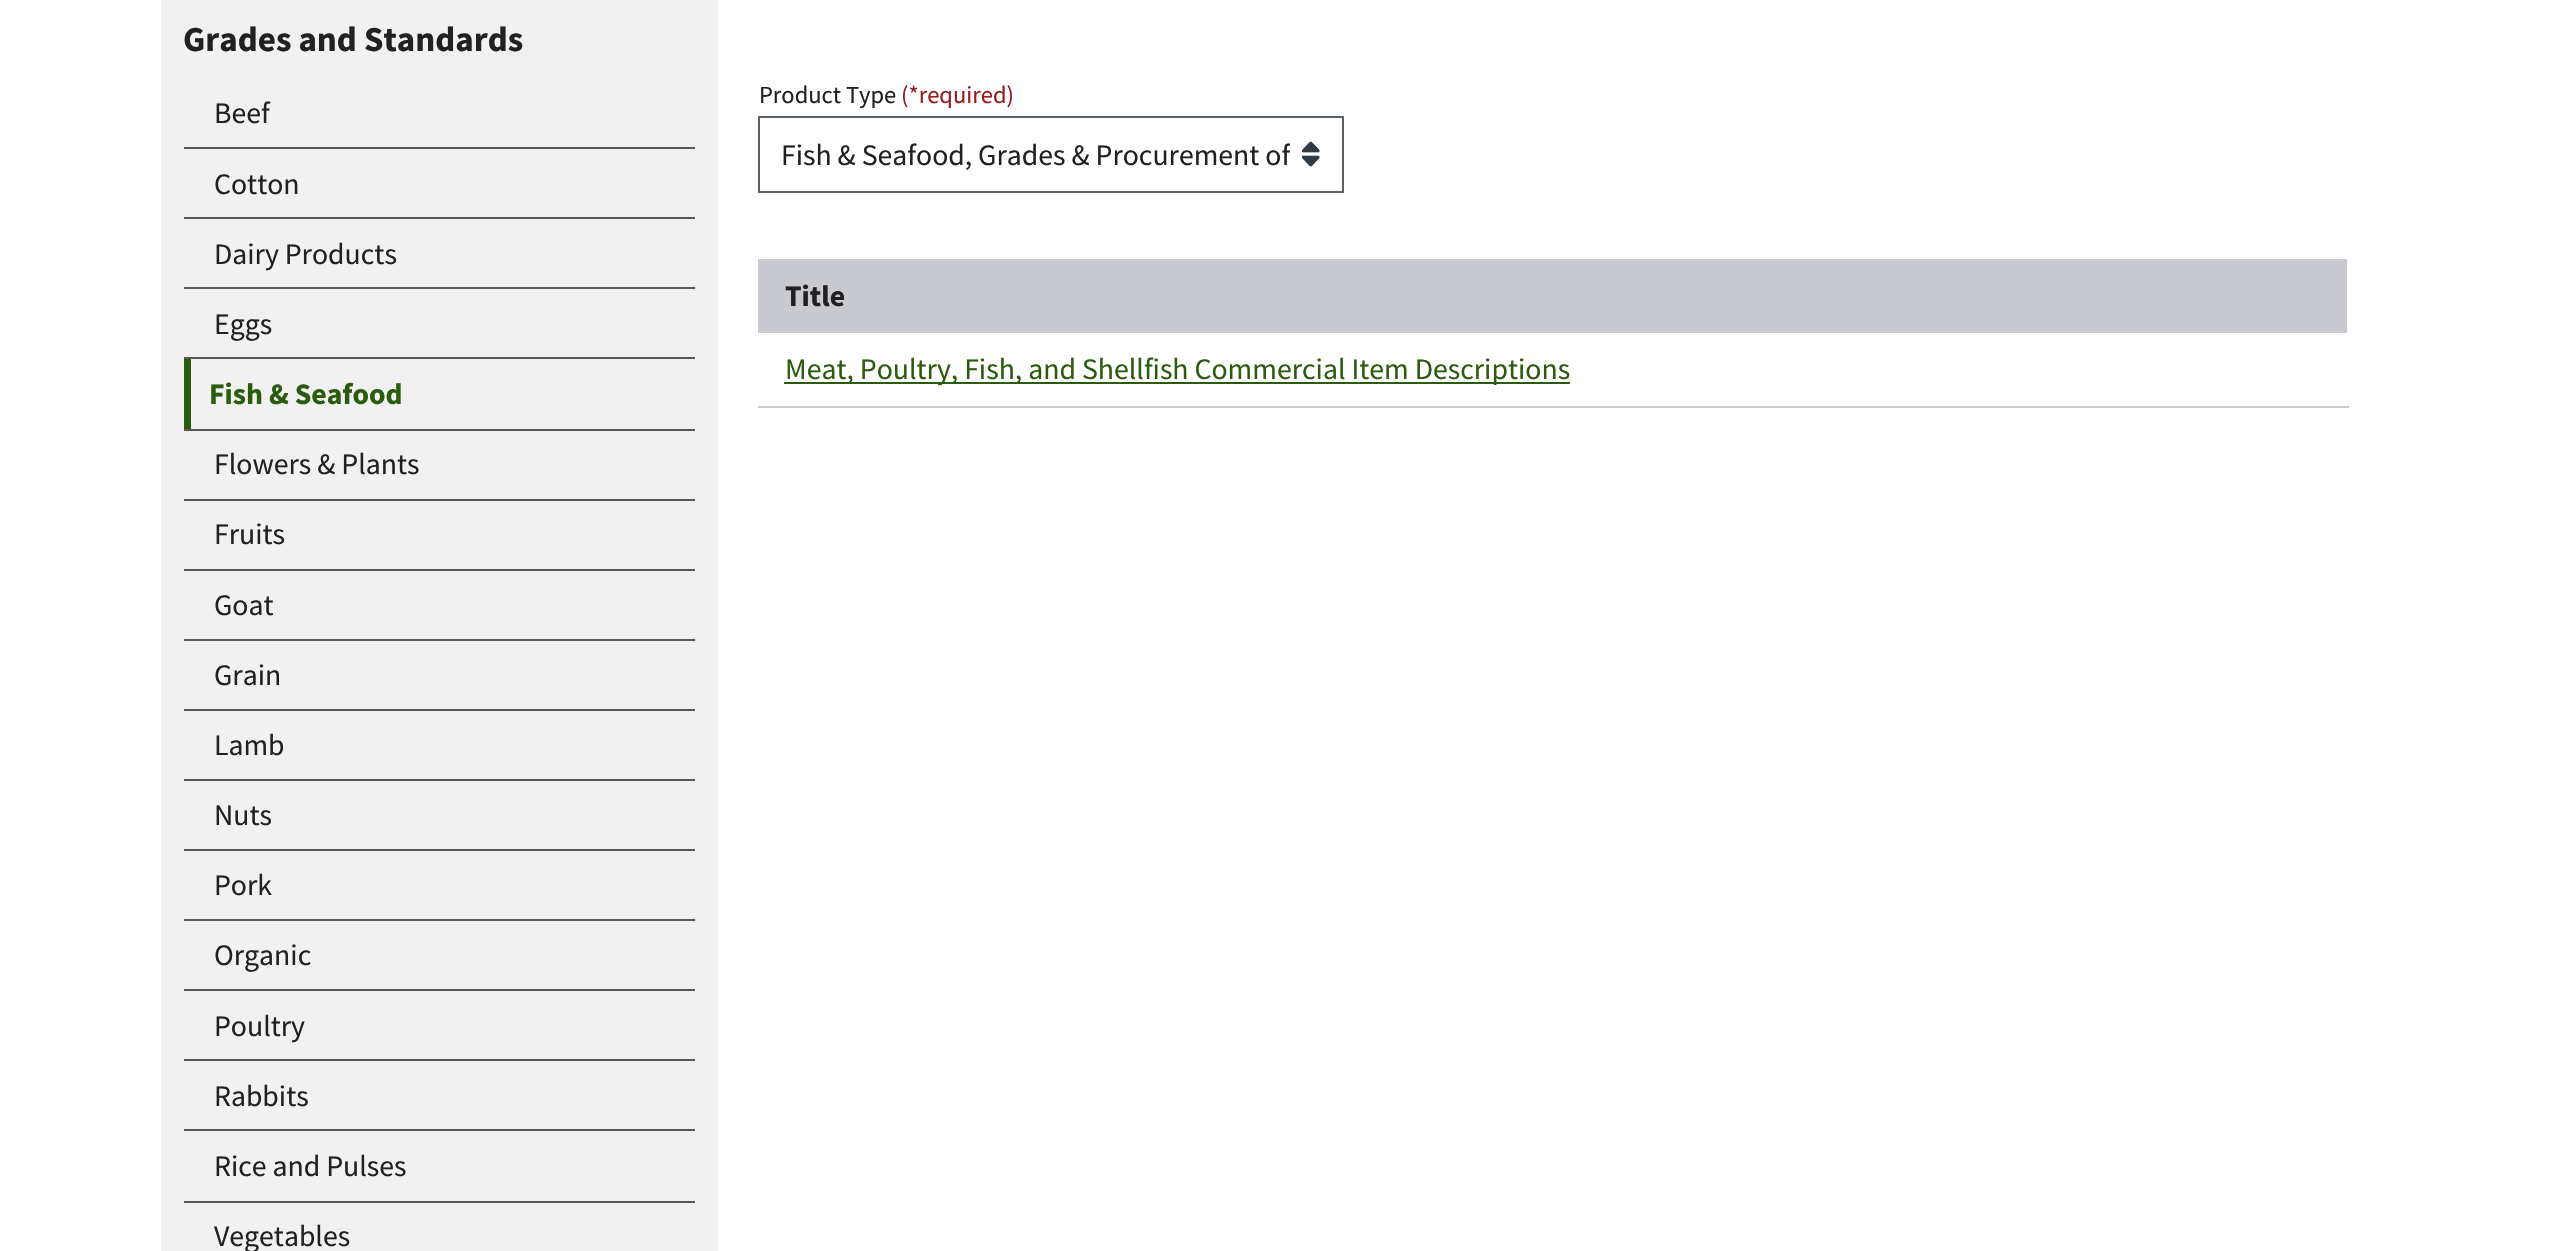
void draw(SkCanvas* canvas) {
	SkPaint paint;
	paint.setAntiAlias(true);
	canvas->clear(0xffffffff);
	paint.setColor(0xfff1f1f1);
	canvas->drawRect(SkRect::MakeXYWH(161, 0, 557, 1251), paint);
	SkFont f1(fontMgr->matchFamilyStyle("Source Sans Pro", SkFontStyle::Bold()), 35);
	f1.setSubpixel(true);
	paint.setColor(0xff212121);
	canvas->drawString("Grades and Standards", 183, 51, f1, paint);
	SkFont f2(fontMgr->matchFamilyStyle("Source Sans Pro", SkFontStyle::Normal()), 29.75);
	f2.setSubpixel(true);
	canvas->drawString("Beef", 214, 123, f2, paint);
	paint.setColor(0xff575757);
	canvas->drawRect(SkRect::MakeXYWH(184, 147, 511, 2), paint);
	paint.setColor(0xff212121);
	canvas->drawString("Cotton", 214, 194, f2, paint);
	paint.setColor(0xff575757);
	canvas->drawRect(SkRect::MakeXYWH(184, 217, 511, 2), paint);
	paint.setColor(0xff212121);
	canvas->drawString("Dairy Products", 214, 264, f2, paint);
	paint.setColor(0xff575757);
	canvas->drawRect(SkRect::MakeXYWH(184, 287, 511, 2), paint);
	paint.setColor(0xff212121);
	canvas->drawString("Eggs", 214, 334, f2, paint);
	paint.setColor(0xff575757);
	canvas->drawRect(SkRect::MakeXYWH(184, 357, 511, 2), paint);
	paint.setColor(0xff2b5c0d);
	canvas->drawRect(SkRect::MakeXYWH(184, 359, 7, 70), paint);
	SkFont f3(fontMgr->matchFamilyStyle("Source Sans Pro", SkFontStyle::Bold()), 29.75);
	f3.setSubpixel(true);
	canvas->drawString("Fish & Seafood", 209, 404, f3, paint);
	paint.setColor(0xff575757);
	canvas->drawRect(SkRect::MakeXYWH(184, 429, 511, 2), paint);
	paint.setColor(0xff212121);
	canvas->drawString("Flowers & Plants", 214, 474, f2, paint);
	paint.setColor(0xff575757);
	canvas->drawRect(SkRect::MakeXYWH(184, 499, 511, 2), paint);
	paint.setColor(0xff212121);
	canvas->drawString("Fruits", 214, 544, f2, paint);
	paint.setColor(0xff575757);
	canvas->drawRect(SkRect::MakeXYWH(184, 569, 511, 2), paint);
	paint.setColor(0xff212121);
	canvas->drawString("Goat", 214, 615, f2, paint);
	paint.setColor(0xff575757);
	canvas->drawRect(SkRect::MakeXYWH(184, 639, 511, 2), paint);
	paint.setColor(0xff212121);
	canvas->drawString("Grain", 214, 685, f2, paint);
	paint.setColor(0xff575757);
	canvas->drawRect(SkRect::MakeXYWH(184, 709, 511, 2), paint);
	paint.setColor(0xff212121);
	canvas->drawString("Lamb", 214, 755, f2, paint);
	paint.setColor(0xff575757);
	canvas->drawRect(SkRect::MakeXYWH(184, 779, 511, 2), paint);
	paint.setColor(0xff212121);
	canvas->drawString("Nuts", 214, 825, f2, paint);
	paint.setColor(0xff575757);
	canvas->drawRect(SkRect::MakeXYWH(184, 849, 511, 2), paint);
	paint.setColor(0xff212121);
	canvas->drawString("Pork", 214, 895, f2, paint);
	paint.setColor(0xff575757);
	canvas->drawRect(SkRect::MakeXYWH(184, 919, 511, 2), paint);
	paint.setColor(0xff212121);
	canvas->drawString("Organic", 214, 965, f2, paint);
	paint.setColor(0xff575757);
	canvas->drawRect(SkRect::MakeXYWH(184, 989, 511, 2), paint);
	paint.setColor(0xff212121);
	canvas->drawString("Poultry", 214, 1036, f2, paint);
	paint.setColor(0xff575757);
	canvas->drawRect(SkRect::MakeXYWH(184, 1059, 511, 2), paint);
	paint.setColor(0xff212121);
	canvas->drawString("Rabbits", 214, 1106, f2, paint);
	paint.setColor(0xff575757);
	canvas->drawRect(SkRect::MakeXYWH(184, 1129, 511, 2), paint);
	paint.setColor(0xff212121);
	canvas->drawString("Rice and Pulses", 214, 1176, f2, paint);
	paint.setColor(0xff575757);
	canvas->drawRect(SkRect::MakeXYWH(184, 1201, 511, 2), paint);
	paint.setColor(0xff212121);
	canvas->drawString("Vegetables", 214, 1246, f2, paint);
	SkFont f4(fontMgr->matchFamilyStyle("Source Sans Pro", SkFontStyle::Normal()), 24.5);
	f4.setSubpixel(true);
	canvas->drawString("Product Type", 759, 103, f4, paint);
	paint.setColor(0xff981b1e);
	canvas->drawString("(*required)", 901, 103, f4, paint);
	canvas->drawImageRect(SkImages::DeferredFromEncodedData(SkData::MakeFromFileName("img1.png")), SkRect::MakeXYWH(1302, 141, 18, 26), SkSamplingOptions());
	paint.setStroke(true);
	paint.setStrokeWidth(2);
	paint.setColor(0xff5b616b);
	canvas->drawRect(SkRect::MakeXYWH(759, 117, 584, 75), paint);
	canvas->save();
	canvas->clipRect(SkRect::MakeXYWH(781, 135, 509, 40));
	paint.setStroke(false);
	paint.setColor(0xff212121);
	canvas->drawString("Fish & Seafood, Grades & Procurement of", 781, 165, f2, paint);
	canvas->restore();
	paint.setColor(0xffc8cad0);
	canvas->drawRect(SkRect::MakeXYWH(758, 259, 1589, 74), paint);
	paint.setColor(0xff212121);
	canvas->drawString("Title", 785, 306, f3, paint);
	paint.setColor(0xffcccccc);
	canvas->drawRect(SkRect::MakeXYWH(758, 406, 1591, 2), paint);
	paint.setColor(0xff2b5c0d);
	canvas->drawRect(SkRect::MakeXYWH(784, 382, 786, 2), paint);
	canvas->drawString("Meat, Poultry, Fish, and Shellfish Commercial Item Descriptions", 785, 379, f2, paint);
}
